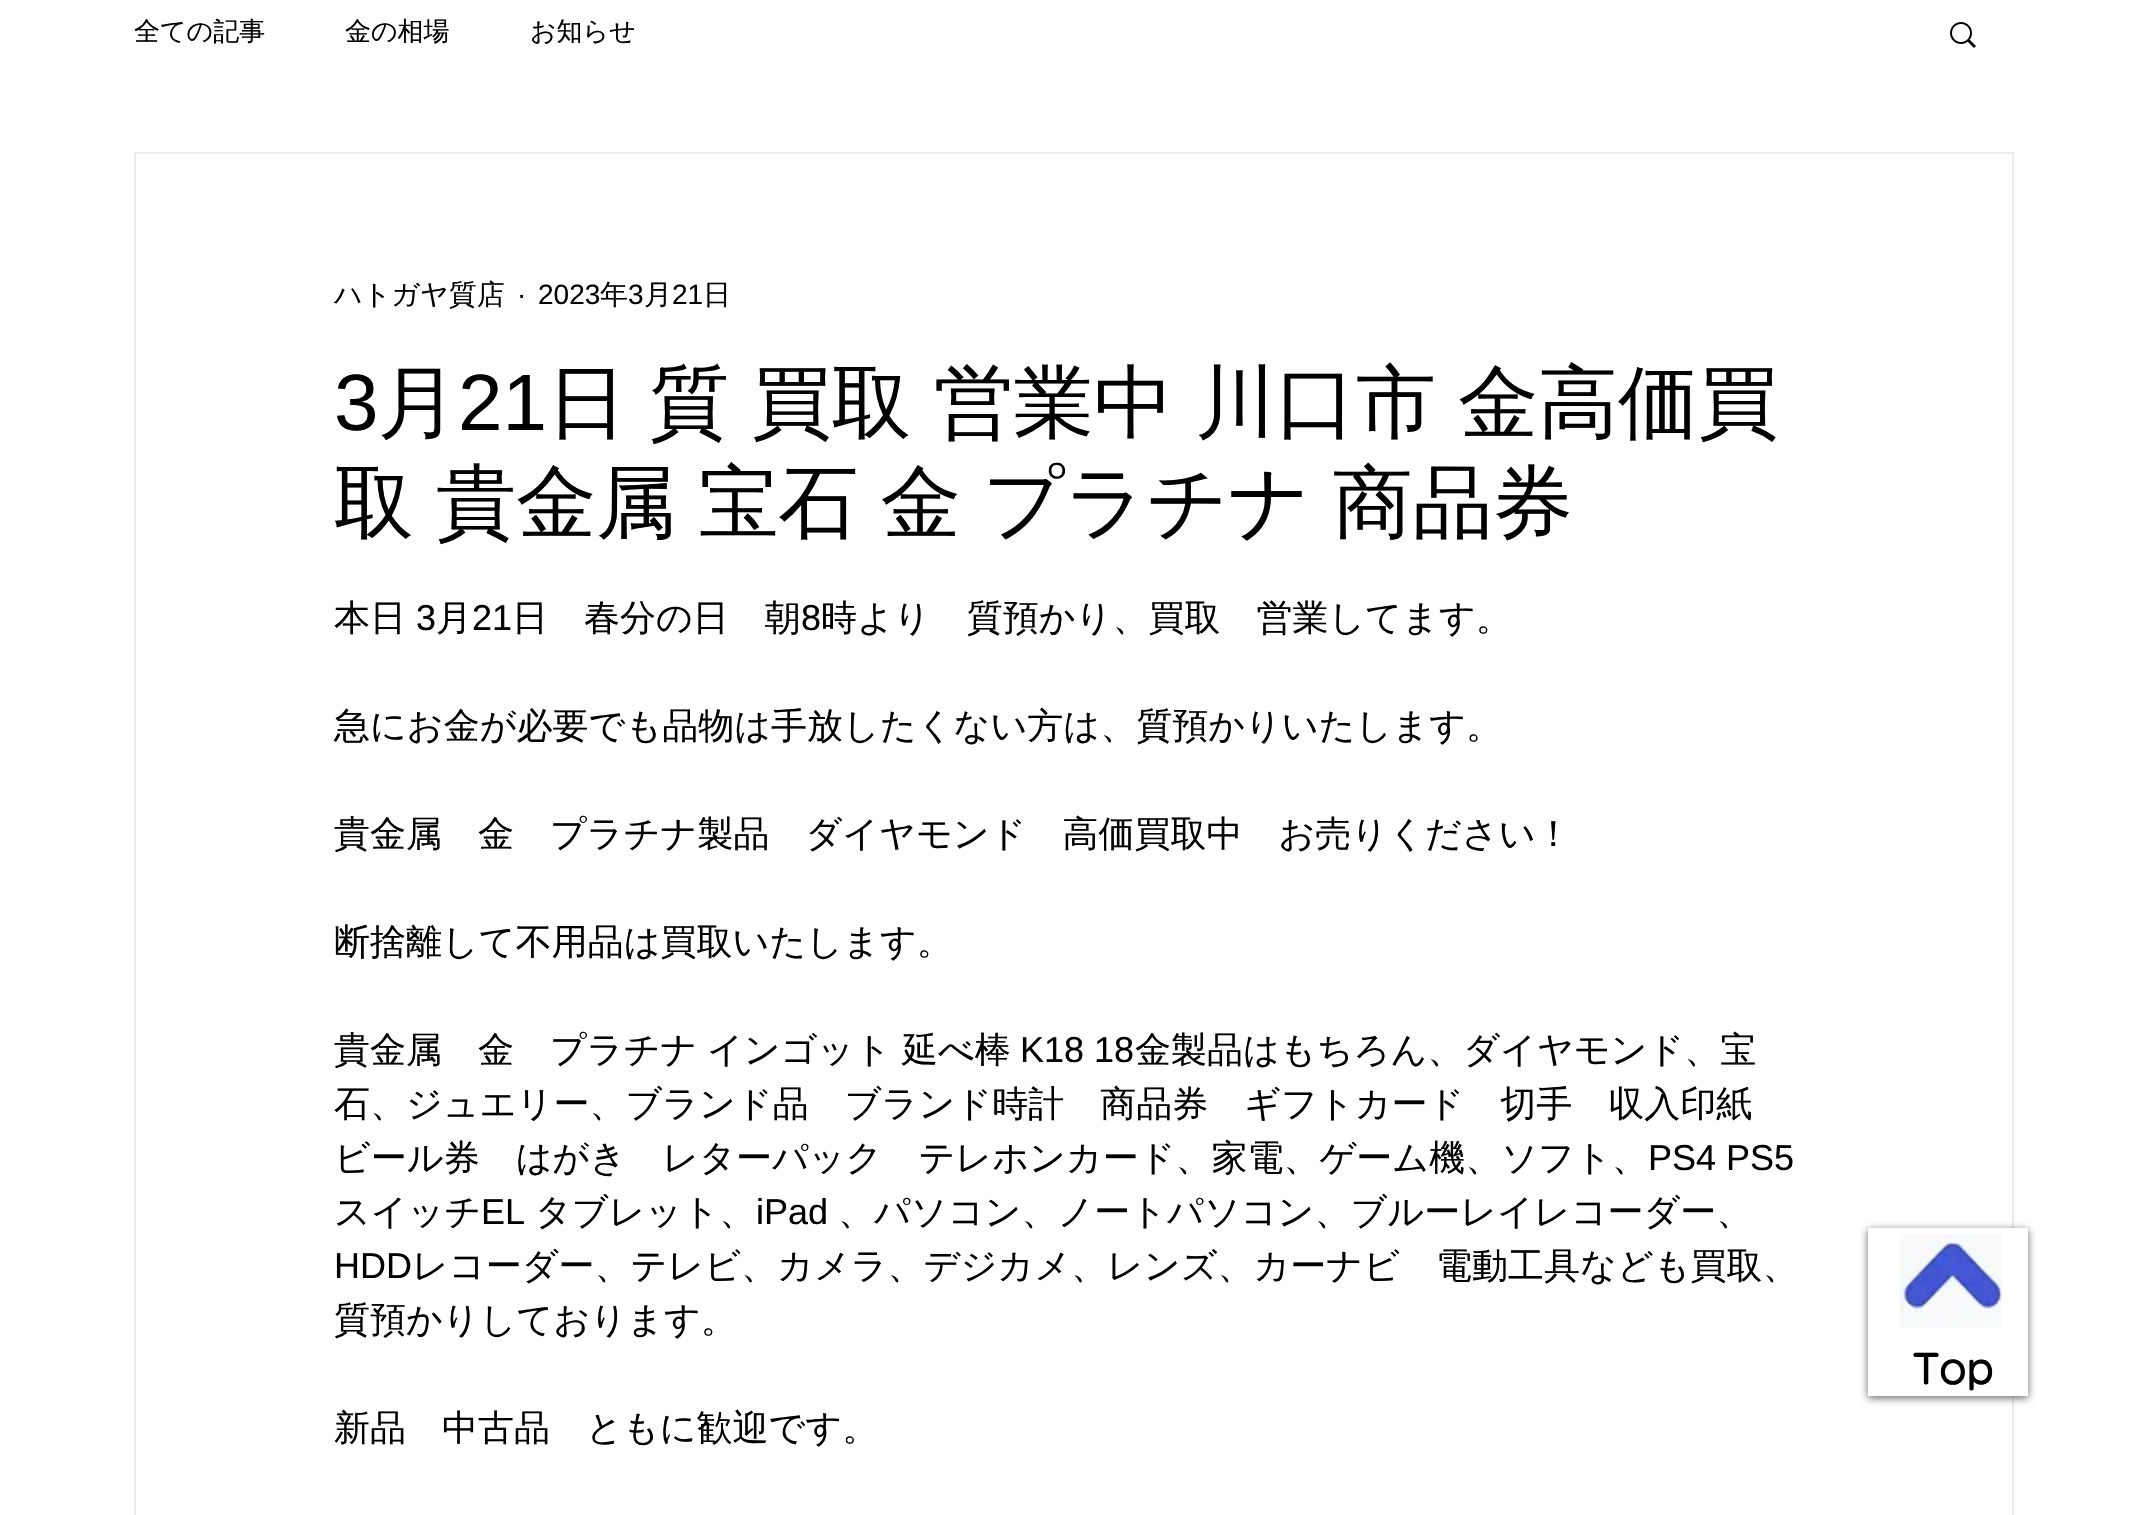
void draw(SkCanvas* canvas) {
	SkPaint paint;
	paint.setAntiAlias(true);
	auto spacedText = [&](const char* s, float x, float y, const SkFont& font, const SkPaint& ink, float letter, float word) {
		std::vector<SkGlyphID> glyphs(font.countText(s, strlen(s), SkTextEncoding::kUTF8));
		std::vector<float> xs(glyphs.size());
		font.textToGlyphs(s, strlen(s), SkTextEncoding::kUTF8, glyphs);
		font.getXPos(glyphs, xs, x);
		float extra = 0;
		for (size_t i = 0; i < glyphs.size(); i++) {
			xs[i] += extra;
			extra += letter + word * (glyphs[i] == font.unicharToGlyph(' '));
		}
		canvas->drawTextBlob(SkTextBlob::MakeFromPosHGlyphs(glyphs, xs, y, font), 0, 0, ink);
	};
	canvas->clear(0xffffffff);
	SkFont f1(fontMgr->matchFamilyStyle("WenQuanYi Zen Hei", SkFontStyle(500, SkFontStyle::kNormal_Width, SkFontStyle::kUpright_Slant)), 26);
	f1.setSubpixel(true);
	paint.setColor(0xff000000);
	canvas->drawString("全ての記事", 134, 40, f1, paint);
	canvas->drawString("金の相場", 345, 40, f1, paint);
	canvas->drawString("お知らせ", 530, 40, f1, paint);
	canvas->drawImageRect(SkImages::DeferredFromEncodedData(SkData::MakeFromFileName("img1.png")), SkRect::MakeXYWH(1950, 22, 26, 26), SkSamplingOptions());
	paint.setStroke(true);
	paint.setStrokeWidth(2);
	paint.setColor(0xffeeecec);
	canvas->drawRect(SkRect::MakeXYWH(135, 153, 1878, 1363), paint);
	SkFont f2(fontMgr->matchFamilyStyle("WenQuanYi Zen Hei", SkFontStyle(500, SkFontStyle::kNormal_Width, SkFontStyle::kUpright_Slant)), 28);
	f2.setSubpixel(true);
	paint.setStroke(false);
	paint.setColor(0xff000000);
	canvas->drawString("ハトガヤ質店", 334, 304, f2, paint);
	SkFont f3(fontMgr->matchFamilyStyle("Liberation Sans", SkFontStyle::Normal()), 28);
	f3.setSubpixel(true);
	canvas->drawString("·", 517, 304, f3, paint);
	canvas->drawString("2023", 538, 304, f3, paint);
	canvas->drawString("年", 600, 304, f2, paint);
	canvas->drawString("3", 628, 304, f3, paint);
	canvas->drawString("月", 644, 304, f2, paint);
	canvas->drawString("21", 672, 304, f3, paint);
	canvas->drawString("日", 703, 304, f2, paint);
	SkFont f4(fontMgr->matchFamilyStyle("Liberation Sans", SkFontStyle::Normal()), 80);
	f4.setSubpixel(true);
	canvas->drawString("3", 334, 430, f4, paint);
	SkFont f5(fontMgr->matchFamilyStyle("WenQuanYi Zen Hei", SkFontStyle(500, SkFontStyle::kNormal_Width, SkFontStyle::kUpright_Slant)), 80);
	f5.setSubpixel(true);
	canvas->drawString("月", 378, 430, f5, paint);
	canvas->drawString("21", 458, 430, f4, paint);
	spacedText("日 質 買取 営業中 川口市 金高価買", 547, 430, f5, paint, 0, -1.75);
	spacedText("取 貴金属 宝石 金 プラチナ 商品券", 334, 530, f5, paint, 0, -1.75);
	SkFont f6(fontMgr->matchFamilyStyle("WenQuanYi Zen Hei", SkFontStyle(500, SkFontStyle::kNormal_Width, SkFontStyle::kUpright_Slant)), 36);
	f6.setSubpixel(true);
	canvas->drawString("本日", 334, 630, f6, paint);
	SkFont f7(fontMgr->matchFamilyStyle("Liberation Sans", SkFontStyle::Normal()), 36);
	f7.setSubpixel(true);
	canvas->drawString("3", 416, 630, f7, paint);
	canvas->drawString("月", 436, 630, f6, paint);
	canvas->drawString("21", 472, 630, f7, paint);
	canvas->drawString("日　春分の日　朝", 512, 630, f6, paint);
	canvas->drawString("8", 801, 630, f7, paint);
	canvas->drawString("時より　質預かり、買取　営業してます。", 821, 630, f6, paint);
	canvas->drawString("急にお金が必要でも品物は手放したくない方は、質預かりいたします。", 334, 738, f6, paint);
	canvas->drawString("貴金属　金　プラチナ製品　ダイヤモンド　高価買取中　お売りください！", 334, 846, f6, paint);
	canvas->drawString("断捨離して不用品は買取いたします。", 334, 954, f6, paint);
	canvas->drawString("貴金属　金　プラチナ", 334, 1062, f6, paint);
	canvas->drawString("インゴット", 707, 1062, f6, paint);
	canvas->drawString("延べ棒", 902, 1062, f6, paint);
	canvas->drawString("K18 18", 1020, 1062, f7, paint);
	canvas->drawString("金製品はもちろん、ダイヤモンド、宝", 1135, 1062, f6, paint);
	canvas->drawString("石、ジュエリー、ブランド品　ブランド時計　商品券　ギフトカード　切手　収入印紙", 334, 1116, f6, paint);
	canvas->drawString("ビール券　はがき　レターパック　テレホンカード、家電、ゲーム機、ソフト、", 334, 1170, f6, paint);
	canvas->drawString("PS4 PS5", 1648, 1170, f7, paint);
	canvas->drawString("スイッチ", 334, 1224, f6, paint);
	canvas->drawString("EL", 481, 1224, f7, paint);
	canvas->drawString("タブレット、", 535, 1224, f6, paint);
	canvas->drawString("iPad", 756, 1224, f7, paint);
	canvas->drawString("、パソコン、ノートパソコン、ブルーレイレコーダー、", 838, 1224, f6, paint);
	canvas->drawString("HDD", 334, 1278, f7, paint);
	canvas->drawString("レコーダー、テレビ、カメラ、デジカメ、レンズ、カーナビ　電動工具なども買取、", 412, 1278, f6, paint);
	canvas->drawString("質預かりしております。", 334, 1332, f6, paint);
	canvas->drawString("新品　中古品　ともに歓迎です。", 334, 1440, f6, paint);
	paint.setColor(0x99000000);
	paint.setMaskFilter(SkMaskFilter::MakeBlur(kNormal_SkBlurStyle, 4));
	canvas->drawRect(SkRect::MakeXYWH(1868, 1230, 160, 168), paint);
	paint.setMaskFilter(nullptr);
	paint.setColor(0xffffffff);
	canvas->drawRect(SkRect::MakeXYWH(1868, 1228, 160, 168), paint);
	canvas->drawImageRect(SkImages::DeferredFromEncodedData(SkData::MakeFromFileName("img2.png")), SkRect::MakeXYWH(1900, 1234, 102, 94), SkSamplingOptions());
	SkFont f8(fontMgr->matchFamilyStyle("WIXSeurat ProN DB", SkFontStyle(600, SkFontStyle::kNormal_Width, SkFontStyle::kUpright_Slant)), 40);
	f8.setSubpixel(true);
	paint.setColor(0xff000000);
	canvas->drawString("Top", 1913, 1384, f8, paint);
}
